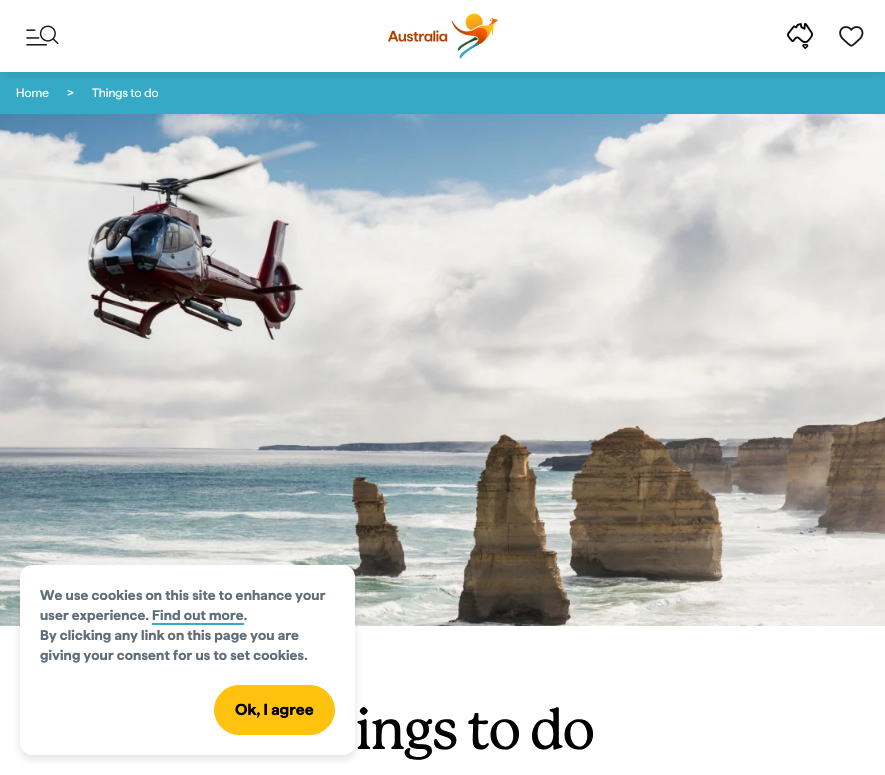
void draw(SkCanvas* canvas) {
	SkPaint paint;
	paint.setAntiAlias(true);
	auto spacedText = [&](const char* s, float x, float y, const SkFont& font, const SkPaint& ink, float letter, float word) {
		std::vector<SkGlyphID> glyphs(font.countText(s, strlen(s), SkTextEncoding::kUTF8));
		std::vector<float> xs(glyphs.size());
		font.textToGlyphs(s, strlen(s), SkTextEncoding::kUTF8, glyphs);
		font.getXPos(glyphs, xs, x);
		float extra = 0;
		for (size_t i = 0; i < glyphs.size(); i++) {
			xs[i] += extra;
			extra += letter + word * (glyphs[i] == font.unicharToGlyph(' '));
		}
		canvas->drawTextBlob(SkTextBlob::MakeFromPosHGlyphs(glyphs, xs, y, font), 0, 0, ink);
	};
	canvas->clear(0xffffffff);
	paint.setColor(0xff36a9c7);
	canvas->drawRect(SkRect::MakeXYWH(0, 72, 885, 42), paint);
	canvas->save();
	canvas->clipRect(SkRect::MakeXYWH(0, 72, 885, 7));
	paint.setColor(0x1a000000);
	paint.setMaskFilter(SkMaskFilter::MakeBlur(kNormal_SkBlurStyle, 7));
	canvas->drawRect(SkRect::MakeXYWH(0, 1, 885, 72), paint);
	paint.setMaskFilter(nullptr);
	canvas->restore();
	canvas->drawImageRect(SkImages::DeferredFromEncodedData(SkData::MakeFromFileName("img1.png")), SkRect::MakeXYWH(26, 25, 33, 21), SkSamplingOptions());
	canvas->drawImageRect(SkImages::DeferredFromEncodedData(SkData::MakeFromFileName("img2.png")), SkRect::MakeXYWH(388, 13, 110, 46), SkSamplingOptions());
	canvas->drawImageRect(SkImages::DeferredFromEncodedData(SkData::MakeFromFileName("img3.png")), SkRect::MakeXYWH(787, 23, 26, 26), SkSamplingOptions());
	canvas->drawImageRect(SkImages::DeferredFromEncodedData(SkData::MakeFromFileName("img4.png")), SkRect::MakeXYWH(839, 26, 25, 21), SkSamplingOptions());
	SkFont f1(fontMgr->matchFamilyStyle("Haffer", SkFontStyle::Normal()), 12);
	f1.setSubpixel(true);
	paint.setColor(0xffffffff);
	canvas->drawString("Home", 16, 97, f1, paint);
	canvas->drawString(">", 67, 97, f1, paint);
	canvas->drawString("Things to do", 92, 97, f1, paint);
	canvas->drawImageRect(SkImages::DeferredFromEncodedData(SkData::MakeFromFileName("img5.png")), SkRect::MakeXYWH(0, 114, 885, 512), SkSamplingOptions());
	SkFont f2(fontMgr->matchFamilyStyle("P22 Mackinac", SkFontStyle(500, SkFontStyle::kNormal_Width, SkFontStyle::kUpright_Slant)), 56);
	f2.setSubpixel(true);
	paint.setColor(0xff000000);
	spacedText("ings to do", 355, 749, f2, paint, -2, 0);
	paint.setColor(0x1f111111);
	paint.setMaskFilter(SkMaskFilter::MakeBlur(kNormal_SkBlurStyle, 4));
	canvas->drawRoundRect(SkRect::MakeXYWH(20, 569, 335, 190), 12, 12, paint);
	paint.setMaskFilter(nullptr);
	paint.setColor(0xffffffff);
	canvas->drawRoundRect(SkRect::MakeXYWH(20, 565, 335, 190), 12, 12, paint);
	SkFont f3(fontMgr->matchFamilyStyle("Haffer", SkFontStyle::Bold()), 14);
	f3.setSubpixel(true);
	paint.setColor(0xff616e7a);
	spacedText("We use cookies on this site to enhance your", 40, 600, f3, paint, 0.15, 0);
	spacedText("user experience. Find out more.", 40, 620, f3, paint, 0.15, 0);
	paint.setColor(0xff36a9c7);
	canvas->drawRect(SkRect::MakeXYWH(152, 623, 92, 2), paint);
	paint.setColor(0xff616e7a);
	spacedText("By clicking any link on this page you are", 40, 640, f3, paint, 0.15, 0);
	spacedText("giving your consent for us to set cookies.", 40, 660, f3, paint, 0.15, 0);
	paint.setColor(0xffffc20e);
	canvas->drawRoundRect(SkRect::MakeXYWH(214.5, 685.5, 120, 49), 24.5, 24.5, paint);
	paint.setStroke(true);
	paint.setStrokeWidth(1);
	canvas->drawRoundRect(SkRect::MakeXYWH(214.5, 685.5, 120, 49), 24.5, 24.5, paint);
	SkFont f4(fontMgr->matchFamilyStyle("Haffer", SkFontStyle::Bold()), 16);
	f4.setSubpixel(true);
	paint.setStroke(false);
	paint.setColor(0xff000000);
	canvas->drawString("Ok, I agree", 235, 715, f4, paint);
}
